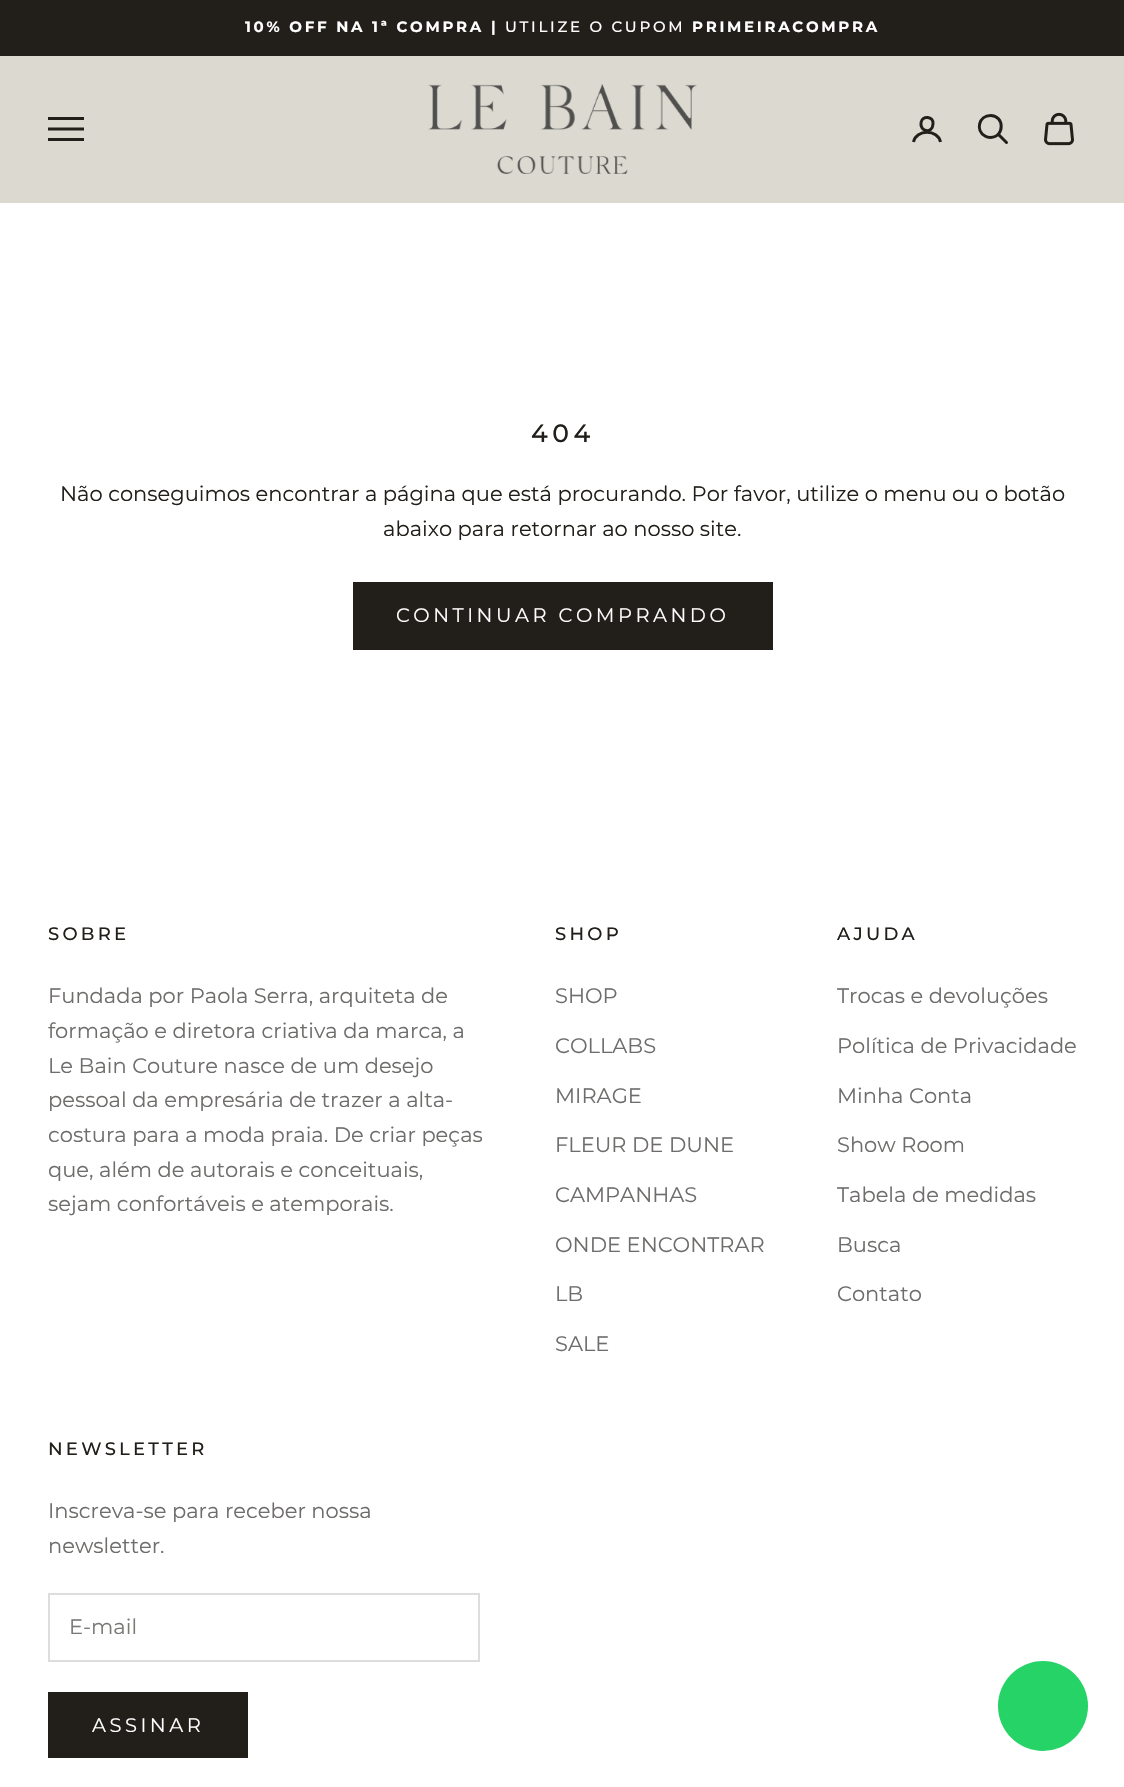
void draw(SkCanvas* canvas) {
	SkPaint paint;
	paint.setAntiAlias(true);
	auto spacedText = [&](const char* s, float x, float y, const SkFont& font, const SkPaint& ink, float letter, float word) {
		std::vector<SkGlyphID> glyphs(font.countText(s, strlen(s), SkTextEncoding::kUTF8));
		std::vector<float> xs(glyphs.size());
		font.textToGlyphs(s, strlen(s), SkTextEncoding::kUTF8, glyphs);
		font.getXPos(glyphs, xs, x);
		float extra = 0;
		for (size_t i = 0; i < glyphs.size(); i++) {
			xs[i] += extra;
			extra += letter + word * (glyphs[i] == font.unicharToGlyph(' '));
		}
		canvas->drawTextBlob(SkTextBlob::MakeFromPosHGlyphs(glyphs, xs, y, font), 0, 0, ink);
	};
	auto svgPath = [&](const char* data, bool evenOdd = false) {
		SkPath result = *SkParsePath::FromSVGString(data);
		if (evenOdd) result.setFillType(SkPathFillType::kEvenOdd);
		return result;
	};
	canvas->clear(0xffffffff);
	paint.setColor(0xff221f1b);
	canvas->drawRect(SkRect::MakeXYWH(0, 0, 1124, 56), paint);
	SkFont f1(fontMgr->matchFamilyStyle("Montserrat", SkFontStyle::Bold()), 15);
	f1.setSubpixel(true);
	paint.setColor(0xffffffff);
	spacedText("10% OFF NA 1ª COMPRA |", 245, 32, f1, paint, 2.7, 0);
	SkFont f2(fontMgr->matchFamilyStyle("Montserrat", SkFontStyle(500, SkFontStyle::kNormal_Width, SkFontStyle::kUpright_Slant)), 15);
	f2.setSubpixel(true);
	spacedText("UTILIZE O CUPOM", 505, 32, f2, paint, 2.7, 0);
	spacedText("PRIMEIRACOMPRA", 692, 32, f1, paint, 2.7, 0);
	paint.setColor(0xffdbd9d0);
	canvas->drawRect(SkRect::MakeXYWH(0, 56, 1124, 147), paint);
	paint.setStroke(true);
	paint.setStrokeWidth(3);
	paint.setStrokeCap(SkPaint::kSquare_Cap);
	paint.setColor(0xff221f1b);
	canvas->drawPath(svgPath("M49.5 139.5H82.5M49.5 129H82.5M49.5 118.5H82.5"), paint);
	canvas->drawImageRect(SkImages::DeferredFromEncodedData(SkData::MakeFromFileName("img1.png")), SkRect::MakeXYWH(428, 84, 269, 90), SkSamplingOptions());
	paint.setStrokeCap(SkPaint::kRound_Cap);
	paint.setStrokeJoin(SkPaint::kRound_Join);
	canvas->drawPath(svgPath("M933 124C932.5 134 919.5 132 921 122.5C922 115 934 116 933 124Z"), paint);
	paint.setStrokeCap(SkPaint::kButt_Cap);
	paint.setStrokeJoin(SkPaint::kMiter_Join);
	canvas->drawPath(svgPath("M913.5 142C916 129 938 129 940.5 142"), paint);
	canvas->drawPath(svgPath("M990.5 115.5C979 115.5 975 130.5 985 136C986.5 137 988.5 137.5 990.5 137.5C1005 137 1004.5 115.5 990.5 115.5Z"), paint);
	paint.setStrokeCap(SkPaint::kRound_Cap);
	canvas->drawPath(svgPath("M999 135L1006.5 142.5"), paint);
	canvas->drawImageRect(SkImages::DeferredFromEncodedData(SkData::MakeFromFileName("img2.png")), SkRect::MakeXYWH(1044, 112, 30, 34), SkSamplingOptions());
	SkFont f3(fontMgr->matchFamilyStyle("Montserrat", SkFontStyle(500, SkFontStyle::kNormal_Width, SkFontStyle::kUpright_Slant)), 25);
	f3.setSubpixel(true);
	paint.setStroke(false);
	spacedText("404", 531, 442, f3, paint, 4.5, 0);
	SkFont f4(fontMgr->matchFamilyStyle("Montserrat", SkFontStyle::Normal()), 21);
	f4.setSubpixel(true);
	canvas->drawString("Não conseguimos encontrar a página que está procurando. Por favor, utilize o menu ou o botão", 60, 501, f4, paint);
	canvas->drawString("abaixo para retornar ao nosso site.", 383, 536, f4, paint);
	canvas->drawRect(SkRect::MakeXYWH(354, 583, 418, 66), paint);
	paint.setStroke(true);
	paint.setStrokeWidth(2);
	paint.setStrokeCap(SkPaint::kButt_Cap);
	canvas->drawRect(SkRect::MakeXYWH(354, 583, 418, 66), paint);
	SkFont f5(fontMgr->matchFamilyStyle("Montserrat", SkFontStyle::Normal()), 19.5);
	f5.setSubpixel(true);
	paint.setStroke(false);
	paint.setColor(0xffffffff);
	spacedText("CONTINUAR COMPRANDO", 396, 622, f5, paint, 3.5, 0);
	SkFont f6(fontMgr->matchFamilyStyle("Montserrat", SkFontStyle(500, SkFontStyle::kNormal_Width, SkFontStyle::kUpright_Slant)), 18);
	f6.setSubpixel(true);
	paint.setColor(0xff221f1b);
	spacedText("SOBRE", 48, 940, f6, paint, 3.25, 0);
	paint.setColor(0xff6f6d6b);
	canvas->drawString("Fundada por Paola Serra, arquiteta de", 48, 1003, f4, paint);
	canvas->drawString("formação e diretora criativa da marca, a", 48, 1038, f4, paint);
	canvas->drawString("Le Bain Couture nasce de um desejo", 48, 1073, f4, paint);
	canvas->drawString("pessoal da empresária de trazer a alta-", 48, 1107, f4, paint);
	canvas->drawString("costura para a moda praia. De criar peças", 48, 1142, f4, paint);
	canvas->drawString("que, além de autorais e conceituais,", 48, 1177, f4, paint);
	canvas->drawString("sejam confortáveis e atemporais.", 48, 1211, f4, paint);
	paint.setColor(0xff221f1b);
	spacedText("SHOP", 555, 940, f6, paint, 3.25, 0);
	paint.setColor(0xff6f6d6b);
	canvas->drawString("SHOP", 555, 1003, f4, paint);
	canvas->drawString("COLLABS", 555, 1053, f4, paint);
	canvas->drawString("MIRAGE", 555, 1103, f4, paint);
	canvas->drawString("FLEUR DE DUNE", 555, 1152, f4, paint);
	canvas->drawString("CAMPANHAS", 555, 1202, f4, paint);
	canvas->drawString("ONDE ENCONTRAR", 555, 1252, f4, paint);
	canvas->drawString("LB", 555, 1301, f4, paint);
	canvas->drawString("SALE", 555, 1351, f4, paint);
	paint.setColor(0xff221f1b);
	spacedText("AJUDA", 837, 940, f6, paint, 3.25, 0);
	paint.setColor(0xff6f6d6b);
	canvas->drawString("Trocas e devoluções", 837, 1003, f4, paint);
	canvas->drawString("Política de Privacidade", 837, 1053, f4, paint);
	canvas->drawString("Minha Conta", 837, 1103, f4, paint);
	canvas->drawString("Show Room", 837, 1152, f4, paint);
	canvas->drawString("Tabela de medidas", 837, 1202, f4, paint);
	canvas->drawString("Busca", 837, 1252, f4, paint);
	canvas->drawString("Contato", 837, 1301, f4, paint);
	paint.setColor(0xff221f1b);
	spacedText("NEWSLETTER", 48, 1455, f6, paint, 3.25, 0);
	paint.setColor(0xff6f6d6b);
	canvas->drawString("Inscreva-se para receber nossa", 48, 1518, f4, paint);
	canvas->drawString("newsletter.", 48, 1553, f4, paint);
	paint.setStroke(true);
	paint.setColor(0xffdedddd);
	canvas->drawRect(SkRect::MakeXYWH(49, 1594, 430, 67), paint);
	paint.setStroke(false);
	paint.setColor(0xff7a7976);
	canvas->drawString("E-mail", 69, 1634, f4, paint);
	paint.setColor(0xff221f1b);
	canvas->drawRect(SkRect::MakeXYWH(49, 1693, 198, 64), paint);
	paint.setStroke(true);
	canvas->drawRect(SkRect::MakeXYWH(49, 1693, 198, 64), paint);
	paint.setStroke(false);
	paint.setColor(0xffffffff);
	spacedText("ASSINAR", 92, 1732, f5, paint, 3.5, 0);
	paint.setColor(0xff25d366);
	canvas->drawCircle(1043, 1706, 45, paint);
}
